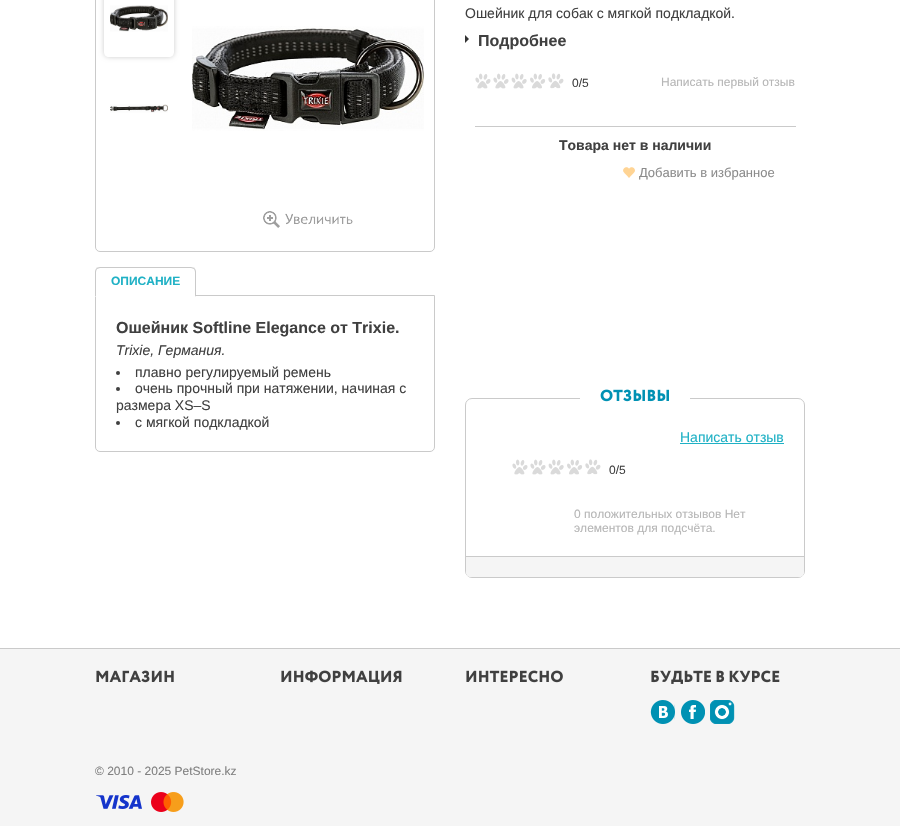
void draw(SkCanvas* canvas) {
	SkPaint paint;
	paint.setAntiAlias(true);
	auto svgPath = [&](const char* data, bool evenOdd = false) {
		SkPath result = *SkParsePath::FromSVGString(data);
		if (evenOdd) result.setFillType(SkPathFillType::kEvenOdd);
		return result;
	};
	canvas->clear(0xffffffff);
	paint.setStroke(true);
	paint.setStrokeWidth(1);
	paint.setColor(0xffcacaca);
	canvas->drawRoundRect(SkRect::MakeXYWH(95.5, -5.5, 339, 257), 4.5, 4.5, paint);
	canvas->save();
	canvas->clipPath(svgPath("M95 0H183V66H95ZM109-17H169C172-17 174-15 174-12V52C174 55 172 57 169 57H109C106 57 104 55 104 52V-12C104-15 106-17 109-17Z", true), true);
	paint.setStroke(false);
	paint.setColor(0xffcccccc);
	paint.setMaskFilter(SkMaskFilter::MakeBlur(kNormal_SkBlurStyle, 2.5));
	canvas->drawRoundRect(SkRect::MakeXYWH(104, -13, 70, 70), 5, 5, paint);
	paint.setMaskFilter(nullptr);
	canvas->restore();
	canvas->drawImageRect(SkImages::DeferredFromEncodedData(SkData::MakeFromFileName("img1.png")), SkRect::MakeXYWH(110, 5, 58, 27), SkSamplingOptions());
	canvas->drawImageRect(SkImages::DeferredFromEncodedData(SkData::MakeFromFileName("img2.png")), SkRect::MakeXYWH(110, 104, 58, 9), SkSamplingOptions());
	canvas->drawImageRect(SkImages::DeferredFromEncodedData(SkData::MakeFromFileName("img3.png")), SkRect::MakeXYWH(192, 26, 232, 105), SkSamplingOptions());
	canvas->drawImageRect(SkImages::DeferredFromEncodedData(SkData::MakeFromFileName("img4.png")), SkRect::MakeXYWH(263, 211, 90, 17), SkSamplingOptions());
	SkFont f1(fontMgr->matchFamilyStyle("Liberation Sans", SkFontStyle::Normal()), 14);
	f1.setSubpixel(true);
	paint.setColor(0xff404040);
	canvas->drawString("Ошейник для собак с мягкой подкладкой.", 465, 18, f1, paint);
	paint.setColor(0xff333333);
	canvas->drawPath(svgPath("M465 43V35L469 39Z"), paint);
	SkFont f2(fontMgr->matchFamilyStyle("Liberation Sans", SkFontStyle::Bold()), 16);
	f2.setSubpixel(true);
	paint.setColor(0xff404040);
	canvas->drawString("Подробнее", 478, 46, f2, paint);
	paint.setColor(0xffdadada);
	canvas->drawRect(SkRect::MakeXYWH(475, 73, 89, 16), paint);
	canvas->drawImageRect(SkImages::DeferredFromEncodedData(SkData::MakeFromFileName("img5.png")), SkRect::MakeXYWH(473, 70, 95, 22), SkSamplingOptions());
	SkFont f3(fontMgr->matchFamilyStyle("Liberation Sans", SkFontStyle::Normal()), 12);
	f3.setSubpixel(true);
	paint.setColor(0xff404040);
	canvas->drawString("0/5", 572, 87, f3, paint);
	paint.setColor(0xffb6b6b6);
	canvas->drawString("Написать первый отзыв", 661, 86, f3, paint);
	paint.setColor(0xffcacaca);
	canvas->drawRect(SkRect::MakeXYWH(475, 126, 321, 1), paint);
	SkFont f4(fontMgr->matchFamilyStyle("Liberation Sans", SkFontStyle::Bold()), 14);
	f4.setSubpixel(true);
	paint.setColor(0xff404040);
	canvas->drawString("Товара нет в наличии", 559, 150, f4, paint);
	canvas->drawImageRect(SkImages::DeferredFromEncodedData(SkData::MakeFromFileName("img6.png")), SkRect::MakeXYWH(623, 167, 12, 11), SkSamplingOptions());
	SkFont f5(fontMgr->matchFamilyStyle("Liberation Sans", SkFontStyle::Normal()), 13);
	f5.setSubpixel(true);
	paint.setColor(0xff8c8c8c);
	canvas->drawString("Добавить в избранное", 639, 177, f5, paint);
	paint.setStroke(true);
	paint.setColor(0xffcacaca);
	canvas->drawPath(svgPath("M95.5 295.5H434.5V447C434.5 449.5 432.5 451.5 430 451.5H100C97.5 451.5 95.5 449.5 95.5 447Z"), paint);
	paint.setStroke(false);
	paint.setColor(0xffffffff);
	canvas->drawPath(svgPath("M100 267H191C194 267 196 269 196 272V297H95V272C95 269 97 267 100 267Z"), paint);
	paint.setColor(0xffcacaca);
	canvas->drawPath(svgPath("M100 267C98 267 97 268 96 268L97 269L100 268H191L194 269L195 268C194 268 192 267 191 267Z"), paint);
	canvas->drawPath(svgPath("M196 297V272C196 270.5 195.5 269 194.5 268.5L194 269C194.5 270 195 271 195 272V296Z"), paint);
	paint.setColor(0xffffffff);
	canvas->drawPath(svgPath("M196 297L195 296H96L95 297Z"), paint);
	paint.setColor(0xffcacaca);
	canvas->drawPath(svgPath("M95 297L96 296V272C96 271 96.5 270 97 269L96.5 268.5C95.5 269 95 270.5 95 272Z"), paint);
	SkFont f6(fontMgr->matchFamilyStyle("Liberation Sans", SkFontStyle::Bold()), 12);
	f6.setSubpixel(true);
	paint.setColor(0xff1fb1c5);
	canvas->drawString("ОПИСАНИЕ", 111, 285, f6, paint);
	paint.setColor(0xff404040);
	canvas->drawString("Ошейник Softline Elegance от Trixie.", 116, 333, f2, paint);
	SkFont f7(fontMgr->matchFamilyStyle("Liberation Sans", SkFontStyle::Italic()), 14);
	f7.setSubpixel(true);
	canvas->drawString("Trixie, Германия.", 116, 355, f7, paint);
	canvas->drawCircle(118, 373, 2, paint);
	canvas->drawString("плавно регулируемый ремень", 135, 377, f1, paint);
	canvas->drawCircle(118, 389, 2, paint);
	canvas->drawString("очень прочный при натяжении, начиная с", 135, 393, f1, paint);
	canvas->drawString("размера XS–S", 116, 410, f1, paint);
	canvas->drawCircle(118, 423, 2, paint);
	canvas->drawString("с мягкой подкладкой", 135, 427, f1, paint);
	paint.setStroke(true);
	paint.setColor(0xffcacaca);
	canvas->drawRoundRect(SkRect::MakeXYWH(465.5, 398.5, 339, 179), 6.5, 6.5, paint);
	paint.setStroke(false);
	paint.setColor(0xffffffff);
	canvas->drawRect(SkRect::MakeXYWH(580, 398, 110, 1), paint);
	canvas->drawImageRect(SkImages::DeferredFromEncodedData(SkData::MakeFromFileName("img7.png")), SkRect::MakeXYWH(600, 389, 69, 13), SkSamplingOptions());
	paint.setColor(0xff1fb1c5);
	canvas->drawString("Написать отзыв", 680, 442, f1, paint);
	canvas->drawRect(SkRect::MakeXYWH(680, 443, 104, 1), paint);
	paint.setColor(0xffdadada);
	canvas->drawRect(SkRect::MakeXYWH(512, 459, 89, 16), paint);
	canvas->drawImageRect(SkImages::DeferredFromEncodedData(SkData::MakeFromFileName("img5.png")), SkRect::MakeXYWH(510, 456, 95, 22), SkSamplingOptions());
	paint.setColor(0xff404040);
	canvas->drawString("0/5", 609, 474, f3, paint);
	paint.setColor(0xffb6b6b6);
	canvas->drawString("0 положительных отзывов Нет", 574, 518, f3, paint);
	canvas->drawString("элементов для подсчёта.", 574, 532, f3, paint);
	paint.setColor(0xfff5f5f5);
	canvas->drawPath(svgPath("M466 556H804V572C804 575 802 577 799 577H471C468 577 466 575 466 572Z"), paint);
	paint.setColor(0xffcacaca);
	canvas->drawRect(SkRect::MakeXYWH(466, 556, 338, 1), paint);
	paint.setColor(0xfff5f5f5);
	canvas->drawRect(SkRect::MakeXYWH(0, 649, 900, 177), paint);
	paint.setColor(0xffcacaca);
	canvas->drawRect(SkRect::MakeXYWH(0, 648, 900, 1), paint);
	canvas->drawImageRect(SkImages::DeferredFromEncodedData(SkData::MakeFromFileName("img8.png")), SkRect::MakeXYWH(96, 670, 78, 13), SkSamplingOptions());
	canvas->drawImageRect(SkImages::DeferredFromEncodedData(SkData::MakeFromFileName("img9.png")), SkRect::MakeXYWH(281, 670, 121, 14), SkSamplingOptions());
	canvas->drawImageRect(SkImages::DeferredFromEncodedData(SkData::MakeFromFileName("img10.png")), SkRect::MakeXYWH(466, 670, 97, 13), SkSamplingOptions());
	canvas->drawImageRect(SkImages::DeferredFromEncodedData(SkData::MakeFromFileName("img11.png")), SkRect::MakeXYWH(651, 670, 129, 14), SkSamplingOptions());
	canvas->drawImageRect(SkImages::DeferredFromEncodedData(SkData::MakeFromFileName("img12.png")), SkRect::MakeXYWH(650, 700, 25, 24), SkSamplingOptions());
	canvas->drawImageRect(SkImages::DeferredFromEncodedData(SkData::MakeFromFileName("img13.png")), SkRect::MakeXYWH(681, 700, 24, 24), SkSamplingOptions());
	canvas->drawImageRect(SkImages::DeferredFromEncodedData(SkData::MakeFromFileName("img14.png")), SkRect::MakeXYWH(710, 700, 25, 24), SkSamplingOptions());
	paint.setColor(0xff808080);
	canvas->drawString("© 2010 - 2025 PetStore.kz", 95, 775, f3, paint);
	canvas->drawImageRect(SkImages::DeferredFromEncodedData(SkData::MakeFromFileName("img15.png")), SkRect::MakeXYWH(96, 795, 46, 14), SkSamplingOptions());
	canvas->drawImageRect(SkImages::DeferredFromEncodedData(SkData::MakeFromFileName("img16.png")), SkRect::MakeXYWH(151, 792, 33, 20), SkSamplingOptions());
}
